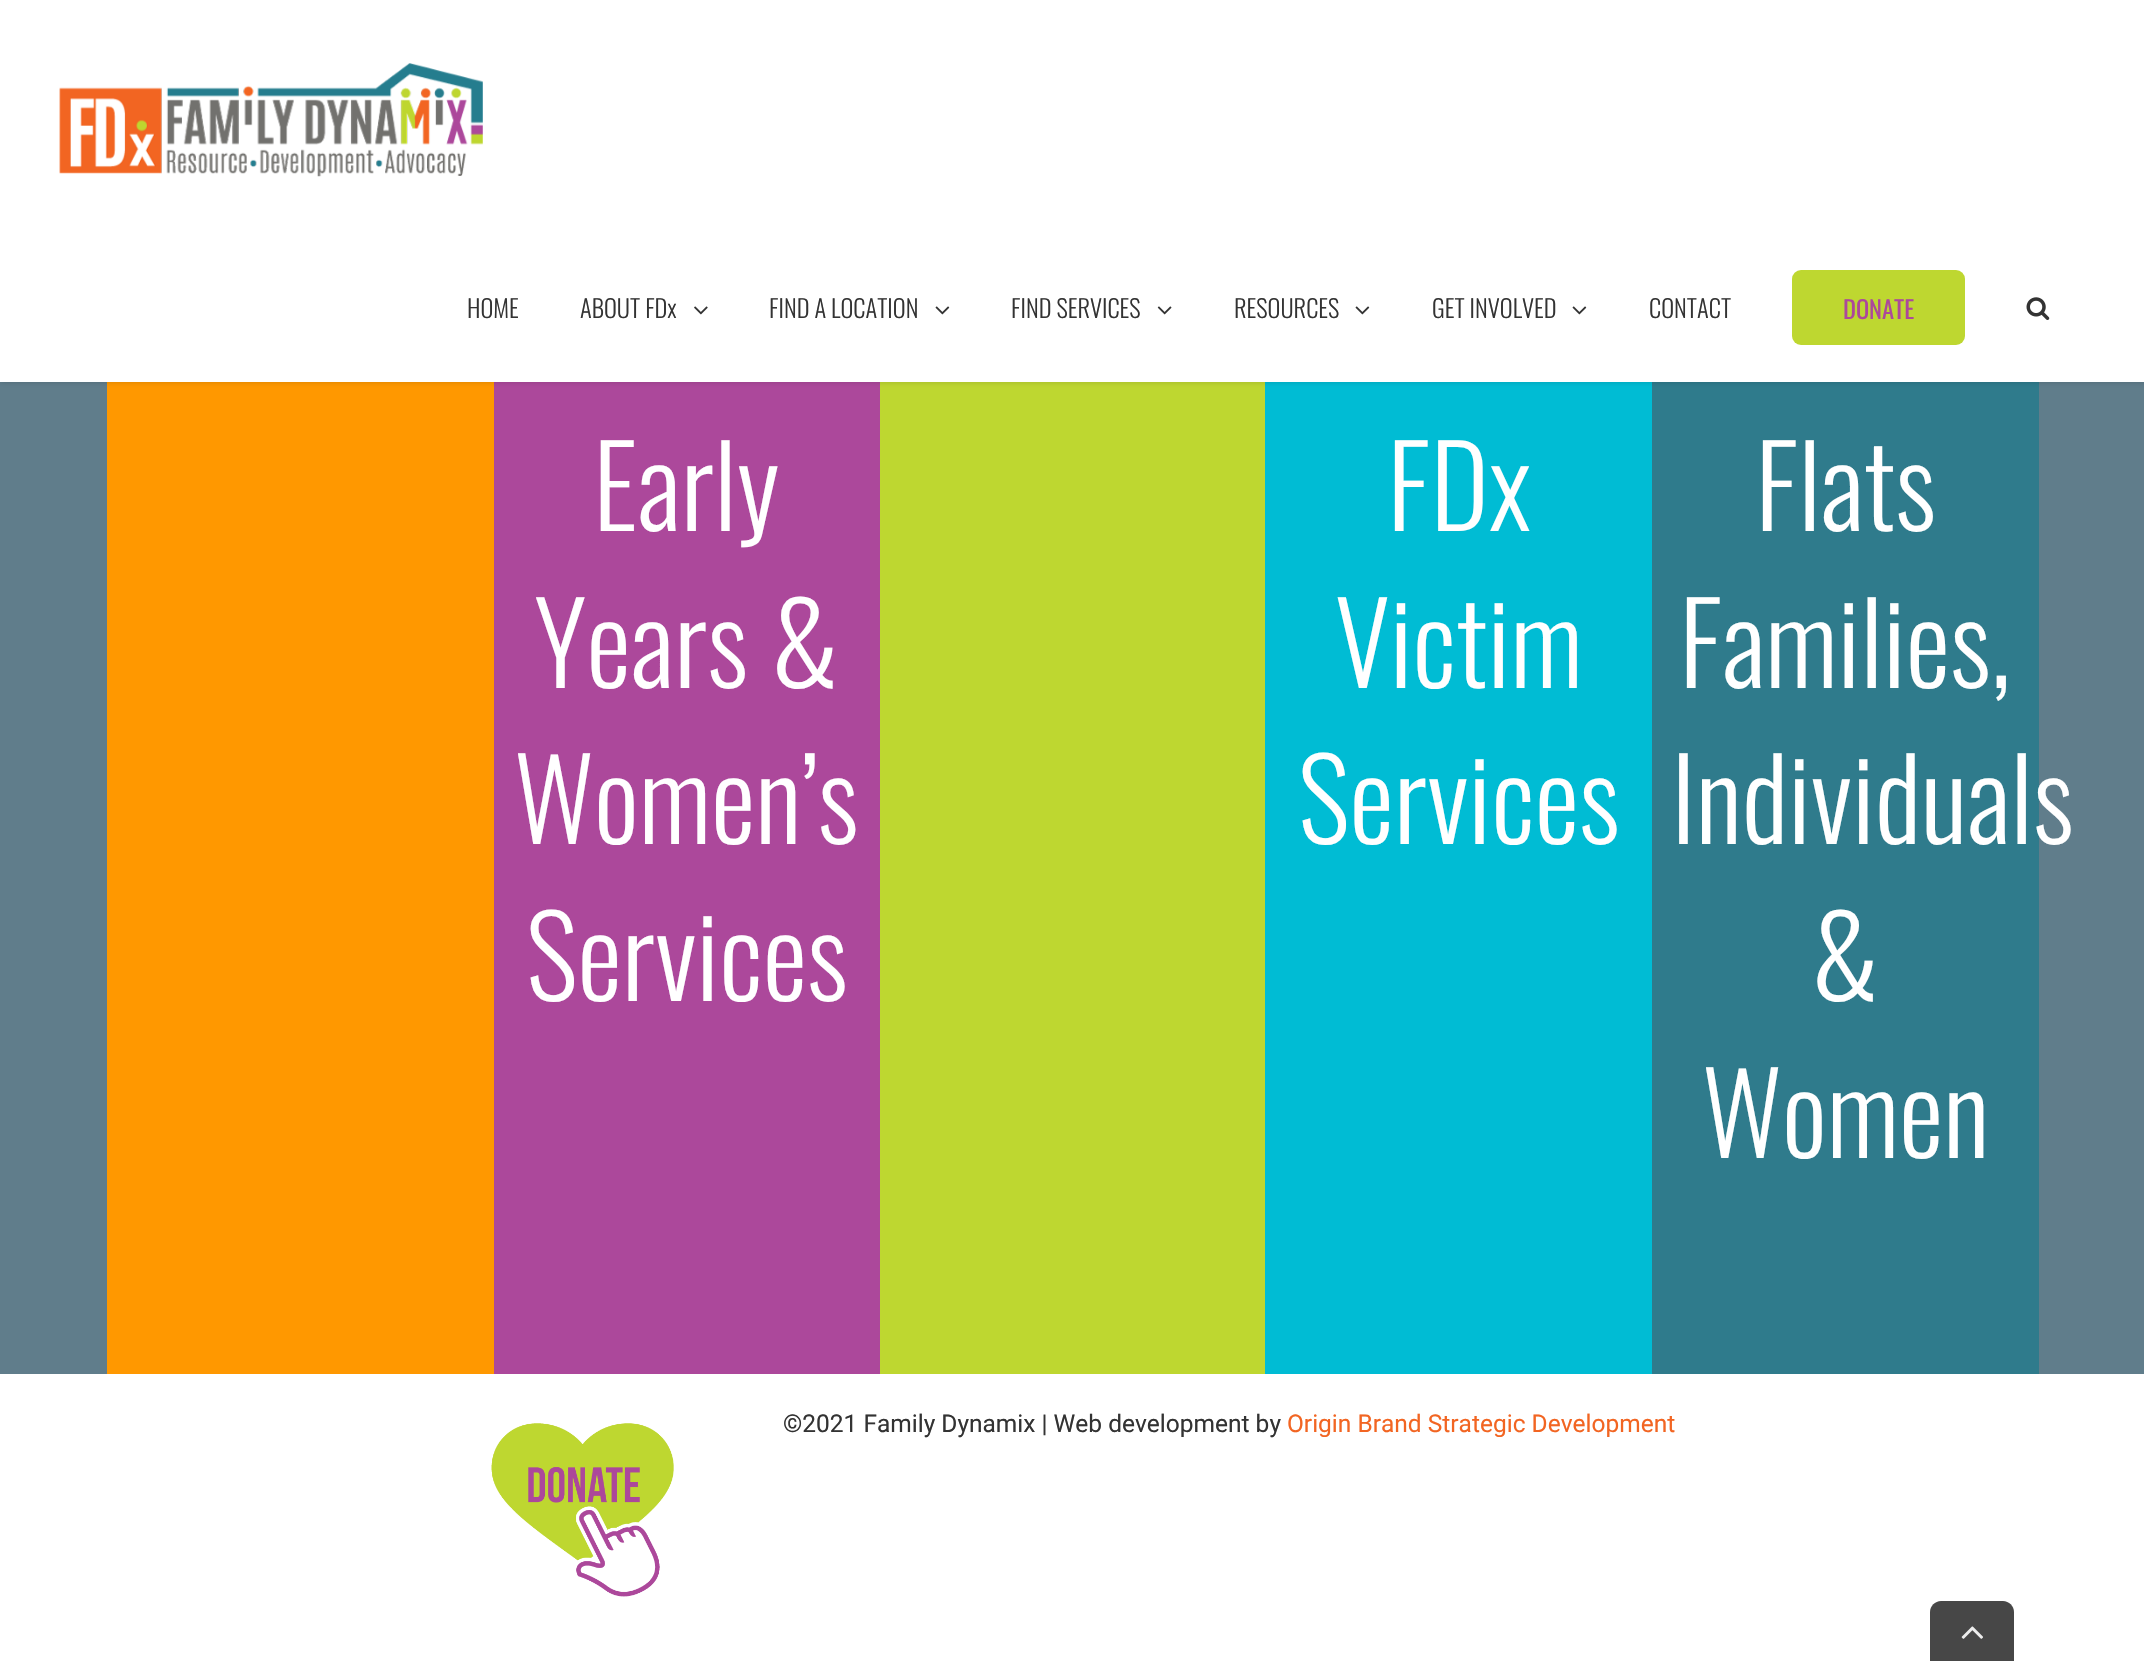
void draw(SkCanvas* canvas) {
	SkPaint paint;
	paint.setAntiAlias(true);
	auto svgPath = [&](const char* data, bool evenOdd = false) {
		SkPath result = *SkParsePath::FromSVGString(data);
		if (evenOdd) result.setFillType(SkPathFillType::kEvenOdd);
		return result;
	};
	canvas->clear(0xffffffff);
	paint.setColor(0xff607d8b);
	canvas->drawRect(SkRect::MakeXYWH(0, 382, 2144, 992), paint);
	paint.setColor(0xffff9800);
	canvas->drawRect(SkRect::MakeXYWH(107, 382, 387, 992), paint);
	paint.setColor(0xffac489b);
	canvas->drawRect(SkRect::MakeXYWH(494, 382, 386, 992), paint);
	paint.setColor(0xffbed730);
	canvas->drawRect(SkRect::MakeXYWH(880, 382, 385, 992), paint);
	paint.setColor(0xff00bcd4);
	canvas->drawRect(SkRect::MakeXYWH(1265, 382, 387, 992), paint);
	paint.setColor(0xff2f7b8c);
	canvas->drawRect(SkRect::MakeXYWH(1652, 382, 387, 992), paint);
	paint.setColor(0x1f000000);
	paint.setMaskFilter(SkMaskFilter::MakeBlur(kNormal_SkBlurStyle, 2.5));
	canvas->drawRect(SkRect::MakeXYWH(0, 2, 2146, 381), paint);
	paint.setMaskFilter(nullptr);
	paint.setColor(0xffffffff);
	canvas->drawRect(SkRect::MakeXYWH(0, 0, 2144, 382), paint);
	canvas->drawImageRect(SkImages::DeferredFromEncodedData(SkData::MakeFromFileName("img1.png")), SkRect::MakeXYWH(59, 63, 424, 114), SkSamplingOptions());
	SkFont f1(fontMgr->matchFamilyStyle("Oswald", SkFontStyle(300, SkFontStyle::kNormal_Width, SkFontStyle::kUpright_Slant)), 24.5);
	f1.setSubpixel(true);
	paint.setColor(0xff333333);
	canvas->drawString("HOME", 467, 318, f1, paint);
	canvas->drawString("ABOUT FDx", 580, 318, f1, paint);
	canvas->drawImageRect(SkImages::DeferredFromEncodedData(SkData::MakeFromFileName("img2.png")), SkRect::MakeXYWH(694, 306, 14, 9), SkSamplingOptions());
	canvas->drawString("FIND A LOCATION", 769, 318, f1, paint);
	canvas->drawImageRect(SkImages::DeferredFromEncodedData(SkData::MakeFromFileName("img3.png")), SkRect::MakeXYWH(935, 306, 15, 9), SkSamplingOptions());
	canvas->drawString("FIND SERVICES", 1011, 318, f1, paint);
	canvas->drawImageRect(SkImages::DeferredFromEncodedData(SkData::MakeFromFileName("img4.png")), SkRect::MakeXYWH(1157, 306, 15, 9), SkSamplingOptions());
	canvas->drawString("RESOURCES", 1234, 318, f1, paint);
	canvas->drawImageRect(SkImages::DeferredFromEncodedData(SkData::MakeFromFileName("img3.png")), SkRect::MakeXYWH(1355, 306, 15, 9), SkSamplingOptions());
	canvas->drawString("GET INVOLVED", 1432, 318, f1, paint);
	canvas->drawImageRect(SkImages::DeferredFromEncodedData(SkData::MakeFromFileName("img3.png")), SkRect::MakeXYWH(1572, 306, 15, 9), SkSamplingOptions());
	canvas->drawString("CONTACT", 1649, 318, f1, paint);
	paint.setColor(0xffbed730);
	canvas->drawRoundRect(SkRect::MakeXYWH(1792, 270, 173, 75), 9, 9, paint);
	SkFont f2(fontMgr->matchFamilyStyle("Oswald", SkFontStyle::Normal()), 24.5);
	f2.setSubpixel(true);
	paint.setColor(0xffac489b);
	canvas->drawString("DONATE", 1843, 319, f2, paint);
	canvas->drawImageRect(SkImages::DeferredFromEncodedData(SkData::MakeFromFileName("img5.png")), SkRect::MakeXYWH(2026, 297, 24, 23), SkSamplingOptions());
	SkFont f3(fontMgr->matchFamilyStyle("Oswald", SkFontStyle(300, SkFontStyle::kNormal_Width, SkFontStyle::kUpright_Slant)), 112);
	f3.setSubpixel(true);
	paint.setColor(0xffffffff);
	canvas->drawString("Early", 593, 531, f3, paint);
	canvas->drawString("Years &", 534, 688, f3, paint);
	canvas->drawString("Women’s", 514, 844, f3, paint);
	canvas->drawString("Services", 526, 1001, f3, paint);
	canvas->drawString("FDx", 1387, 531, f3, paint);
	canvas->drawString("Victim", 1335, 688, f3, paint);
	canvas->drawString("Services", 1298, 844, f3, paint);
	canvas->drawString("Flats", 1755, 531, f3, paint);
	canvas->drawString("Families,", 1679, 688, f3, paint);
	canvas->drawString("Individuals", 1671, 844, f3, paint);
	canvas->drawString("&", 1811, 1001, f3, paint);
	canvas->drawString("Women", 1702, 1158, f3, paint);
	canvas->drawImageRect(SkImages::DeferredFromEncodedData(SkData::MakeFromFileName("img6.png")), SkRect::MakeXYWH(491, 1423, 183, 174), SkSamplingOptions());
	SkFont f4(fontMgr->matchFamilyStyle("Roboto", SkFontStyle::Normal()), 24.5);
	f4.setSubpixel(true);
	paint.setColor(0xff333333);
	canvas->drawString("©2021 Family Dynamix | Web development by", 783, 1432, f4, paint);
	paint.setColor(0xfff26522);
	canvas->drawString("Origin Brand Strategic Development", 1287, 1432, f4, paint);
	paint.setColor(0xff474747);
	canvas->drawPath(svgPath("M1941 1601H2003C2009 1601 2014 1606 2014 1612V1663H1930V1612C1930 1606 1935 1601 1941 1601Z"), paint);
	canvas->drawImageRect(SkImages::DeferredFromEncodedData(SkData::MakeFromFileName("img7.png")), SkRect::MakeXYWH(1961, 1626, 22, 13), SkSamplingOptions());
}
